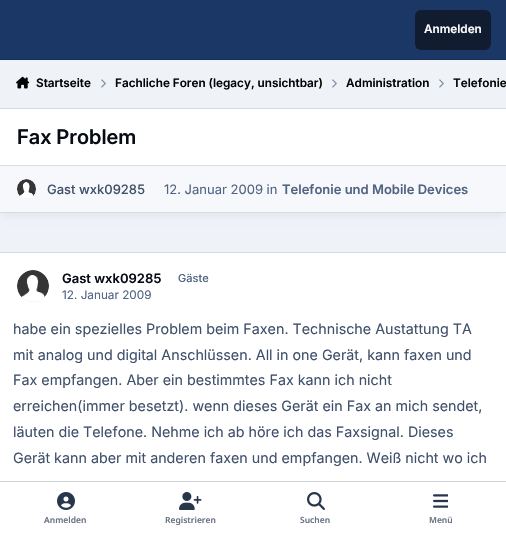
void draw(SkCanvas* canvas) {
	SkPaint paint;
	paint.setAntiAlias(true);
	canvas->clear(0xffeff2f7);
	paint.setColor(0xff1a3766);
	canvas->drawRect(SkRect::MakeXYWH(0, 0, 506, 59), paint);
	paint.setColor(0xff17305a);
	canvas->drawRect(SkRect::MakeXYWH(0, 59, 506, 1), paint);
	paint.setColor(0xff111c31);
	canvas->drawRoundRect(SkRect::MakeXYWH(415, 10, 76, 40), 6, 6, paint);
	SkFont f1(fontMgr->matchFamilyStyle("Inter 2", SkFontStyle(600, SkFontStyle::kNormal_Width, SkFontStyle::kUpright_Slant)), 11.75);
	f1.setSubpixel(true);
	paint.setColor(0xffffffff);
	canvas->drawString("Anmelden", 424, 33, f1, paint);
	canvas->drawImageRect(SkImages::DeferredFromEncodedData(SkData::MakeFromFileName("img1.png")), SkRect::MakeXYWH(16, 76, 14, 13), SkSamplingOptions());
	paint.setColor(0xff020305);
	canvas->drawString("Startseite", 36, 87, f1, paint);
	canvas->drawImageRect(SkImages::DeferredFromEncodedData(SkData::MakeFromFileName("img2.png")), SkRect::MakeXYWH(101, 79, 5, 9), SkSamplingOptions());
	canvas->drawString("Fachliche Foren (legacy, unsichtbar)", 115, 87, f1, paint);
	canvas->drawImageRect(SkImages::DeferredFromEncodedData(SkData::MakeFromFileName("img2.png")), SkRect::MakeXYWH(332, 79, 5, 9), SkSamplingOptions());
	canvas->drawString("Administration", 346, 87, f1, paint);
	canvas->drawImageRect(SkImages::DeferredFromEncodedData(SkData::MakeFromFileName("img2.png")), SkRect::MakeXYWH(439, 79, 5, 9), SkSamplingOptions());
	canvas->drawString("Telefonie", 453, 87, f1, paint);
	paint.setColor(0x0d01030a);
	paint.setMaskFilter(SkMaskFilter::MakeBlur(kNormal_SkBlurStyle, 3.5));
	canvas->drawRect(SkRect::MakeXYWH(3, 117, 500, 99), paint);
	paint.setMaskFilter(nullptr);
	paint.setColor(0xffffffff);
	canvas->drawRect(SkRect::MakeXYWH(0, 109, 506, 56), paint);
	paint.setColor(0xffd5dbe6);
	canvas->drawRect(SkRect::MakeXYWH(0, 108, 506, 1), paint);
	canvas->drawRect(SkRect::MakeXYWH(0, 212, 506, 1), paint);
	SkFont f2(fontMgr->matchFamilyStyle("Inter", SkFontStyle(600, SkFontStyle::kNormal_Width, SkFontStyle::kUpright_Slant)), 20.25);
	f2.setSubpixel(true);
	paint.setColor(0xff060b14);
	canvas->drawString("Fax Problem", 17, 144, f2, paint);
	paint.setColor(0xfff7f8fb);
	canvas->drawRect(SkRect::MakeXYWH(0, 166, 506, 46), paint);
	paint.setColor(0xffd7dfea);
	canvas->drawRect(SkRect::MakeXYWH(0, 165, 506, 1), paint);
	paint.setColor(0xffe5eaf2);
	canvas->drawRoundRect(SkRect::MakeXYWH(17, 179, 19, 20), 9.5, 9.5, paint);
	canvas->drawImageRect(SkImages::DeferredFromEncodedData(SkData::MakeFromFileName("img3.png")), SkRect::MakeXYWH(17, 179, 19, 20), SkSamplingOptions());
	SkFont f3(fontMgr->matchFamilyStyle("Inter", SkFontStyle(500, SkFontStyle::kNormal_Width, SkFontStyle::kUpright_Slant)), 13);
	f3.setSubpixel(true);
	paint.setColor(0xff40506b);
	canvas->drawString("Gast wxk09285", 47, 194, f3, paint);
	SkFont f4(fontMgr->matchFamilyStyle("Inter", SkFontStyle::Normal()), 13);
	f4.setSubpixel(true);
	paint.setColor(0xff516483);
	canvas->drawString("12. Januar 2009 in", 164, 194, f4, paint);
	SkFont f5(fontMgr->matchFamilyStyle("Inter 2", SkFontStyle(600, SkFontStyle::kNormal_Width, SkFontStyle::kUpright_Slant)), 13);
	f5.setSubpixel(true);
	canvas->drawString("Telefonie und Mobile Devices", 282, 194, f5, paint);
	paint.setColor(0xffffffff);
	canvas->drawRect(SkRect::MakeXYWH(0, 253, 506, 284), paint);
	paint.setColor(0xffd5dbe6);
	canvas->drawRect(SkRect::MakeXYWH(0, 252, 506, 1), paint);
	paint.setColor(0xffe5eaf2);
	canvas->drawCircle(33, 286, 16, paint);
	canvas->drawImageRect(SkImages::DeferredFromEncodedData(SkData::MakeFromFileName("img4.png")), SkRect::MakeXYWH(17, 270, 32, 32), SkSamplingOptions());
	paint.setColor(0xff060b14);
	canvas->drawString("Gast wxk09285", 62, 283, f5, paint);
	SkFont f6(fontMgr->matchFamilyStyle("Inter", SkFontStyle(500, SkFontStyle::kNormal_Width, SkFontStyle::kUpright_Slant)), 11);
	f6.setSubpixel(true);
	paint.setColor(0xff516483);
	canvas->drawString("Gäste", 178, 282, f6, paint);
	SkFont f7(fontMgr->matchFamilyStyle("Inter", SkFontStyle::Normal()), 11.75);
	f7.setSubpixel(true);
	canvas->drawString("12. Januar 2009", 62, 299, f7, paint);
	SkFont f8(fontMgr->matchFamilyStyle("Inter", SkFontStyle::Normal()), 14.3);
	f8.setSubpixel(true);
	paint.setColor(0xff40506b);
	canvas->drawString("habe ein spezielles Problem beim Faxen. Technische Austattung TA", 13, 334, f8, paint);
	canvas->drawString("mit analog und digital Anschlüssen. All in one Gerät, kann faxen und", 13, 360, f8, paint);
	canvas->drawString("Fax empfangen. Aber ein bestimmtes Fax kann ich nicht", 13, 385, f8, paint);
	canvas->drawString("erreichen(immer besetzt). wenn dieses Gerät ein Fax an mich sendet,", 13, 411, f8, paint);
	canvas->drawString("läuten die Telefone. Nehme ich ab höre ich das Faxsignal. Dieses", 13, 437, f8, paint);
	canvas->drawString("Gerät kann aber mit anderen faxen und empfangen. Weiß nicht wo ich", 13, 463, f8, paint);
	paint.setColor(0x4040506b);
	canvas->drawRect(SkRect::MakeXYWH(0, 481, 506, 1), paint);
	canvas->drawImageRect(SkImages::DeferredFromEncodedData(SkData::MakeFromFileName("img5.png")), SkRect::MakeXYWH(57, 492, 18, 18), SkSamplingOptions());
	SkFont f9(fontMgr->matchFamilyStyle("Noto Sans", SkFontStyle(600, SkFontStyle::kNormal_Width, SkFontStyle::kUpright_Slant)), 8.5);
	f9.setSubpixel(true);
	paint.setColor(0xff697282);
	canvas->drawString("Anmelden", 44, 523, f9, paint);
	canvas->drawImageRect(SkImages::DeferredFromEncodedData(SkData::MakeFromFileName("img6.png")), SkRect::MakeXYWH(179, 492, 23, 18), SkSamplingOptions());
	canvas->drawString("Registrieren", 165, 523, f9, paint);
	canvas->drawImageRect(SkImages::DeferredFromEncodedData(SkData::MakeFromFileName("img7.png")), SkRect::MakeXYWH(307, 492, 18, 18), SkSamplingOptions());
	canvas->drawString("Suchen", 300, 523, f9, paint);
	canvas->drawImageRect(SkImages::DeferredFromEncodedData(SkData::MakeFromFileName("img8.png")), SkRect::MakeXYWH(433, 494, 15, 14), SkSamplingOptions());
	canvas->drawString("Menü", 429, 523, f9, paint);
}
